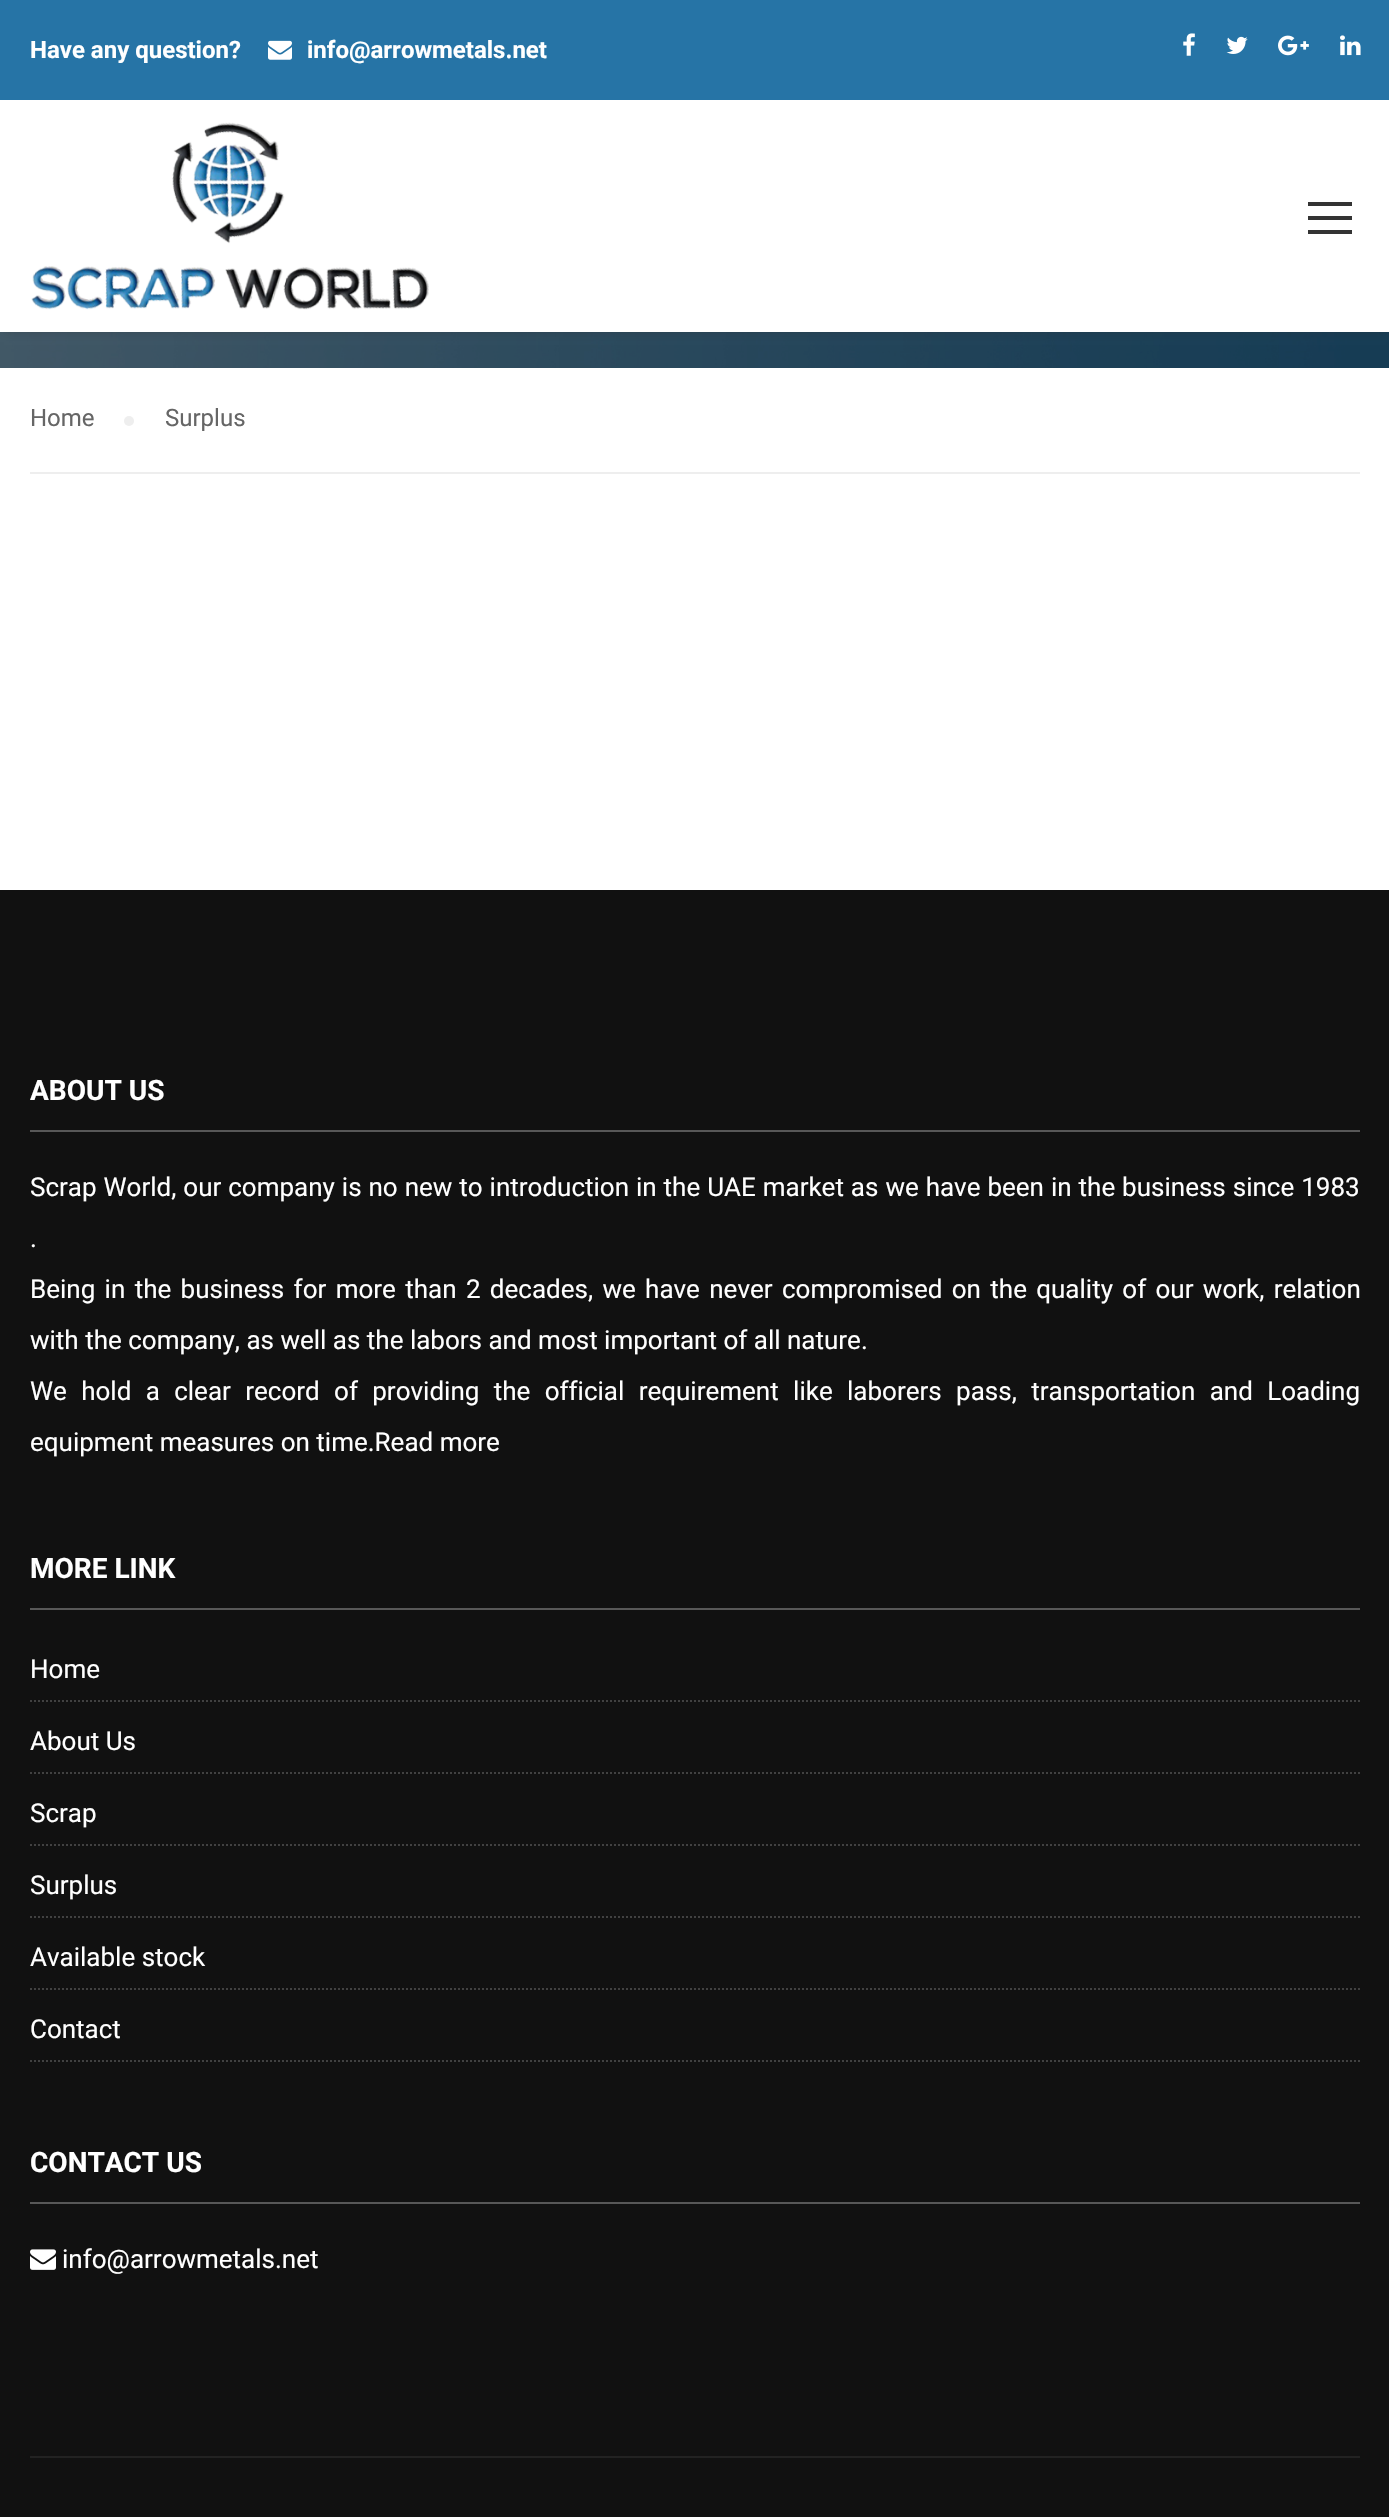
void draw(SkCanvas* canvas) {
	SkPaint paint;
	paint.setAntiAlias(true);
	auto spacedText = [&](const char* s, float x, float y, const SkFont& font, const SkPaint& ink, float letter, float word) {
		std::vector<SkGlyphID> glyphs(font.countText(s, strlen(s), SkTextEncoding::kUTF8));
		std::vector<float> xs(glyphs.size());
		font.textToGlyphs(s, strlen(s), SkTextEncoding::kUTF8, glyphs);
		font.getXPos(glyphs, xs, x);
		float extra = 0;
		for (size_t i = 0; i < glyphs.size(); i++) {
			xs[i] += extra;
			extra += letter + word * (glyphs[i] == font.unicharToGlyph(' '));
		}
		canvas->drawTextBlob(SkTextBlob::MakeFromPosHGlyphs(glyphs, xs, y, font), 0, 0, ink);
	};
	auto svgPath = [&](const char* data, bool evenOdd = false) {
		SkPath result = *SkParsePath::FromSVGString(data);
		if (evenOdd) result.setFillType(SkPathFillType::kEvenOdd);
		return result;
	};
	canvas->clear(0xffffffff);
	canvas->drawImageRect(SkImages::DeferredFromEncodedData(SkData::MakeFromFileName("img7.png")), SkRect::MakeXYWH(0, 332, 1389, 36), SkSamplingOptions());
	paint.setColor(0x662a2a2a);
	paint.setMaskFilter(SkMaskFilter::MakeBlur(kNormal_SkBlurStyle, 5));
	canvas->drawRect(SkRect::MakeXYWH(4, 6, 1382, 324), paint);
	paint.setMaskFilter(nullptr);
	paint.setColor(0xffffffff);
	canvas->drawRect(SkRect::MakeXYWH(0, 100, 1389, 232), paint);
	paint.setColor(0xff2674a6);
	canvas->drawRect(SkRect::MakeXYWH(0, 0, 1389, 100), paint);
	SkFont f1(fontMgr->matchFamilyStyle("Roboto", SkFontStyle::Bold()), 24);
	f1.setSubpixel(true);
	paint.setColor(0xffffffff);
	canvas->drawString("Have any question?", 30, 58, f1, paint);
	canvas->drawImageRect(SkImages::DeferredFromEncodedData(SkData::MakeFromFileName("img1.png")), SkRect::MakeXYWH(268, 40, 24, 20), SkSamplingOptions());
	canvas->drawString("info@arrowmetals.net", 307, 58, f1, paint);
	canvas->drawImageRect(SkImages::DeferredFromEncodedData(SkData::MakeFromFileName("img2.png")), SkRect::MakeXYWH(1183, 33, 12, 23), SkSamplingOptions());
	canvas->drawImageRect(SkImages::DeferredFromEncodedData(SkData::MakeFromFileName("img3.png")), SkRect::MakeXYWH(1226, 36, 22, 18), SkSamplingOptions());
	canvas->drawImageRect(SkImages::DeferredFromEncodedData(SkData::MakeFromFileName("img4.png")), SkRect::MakeXYWH(1278, 35, 31, 21), SkSamplingOptions());
	canvas->drawImageRect(SkImages::DeferredFromEncodedData(SkData::MakeFromFileName("img5.png")), SkRect::MakeXYWH(1340, 35, 21, 21), SkSamplingOptions());
	canvas->drawImageRect(SkImages::DeferredFromEncodedData(SkData::MakeFromFileName("img6.png")), SkRect::MakeXYWH(31, 122, 398, 188), SkSamplingOptions());
	paint.setColor(0xff333333);
	canvas->drawRect(SkRect::MakeXYWH(1308, 202, 44, 4), paint);
	canvas->drawRect(SkRect::MakeXYWH(1308, 216, 44, 4), paint);
	canvas->drawRect(SkRect::MakeXYWH(1308, 230, 44, 4), paint);
	paint.setColor(0xffeeeeee);
	canvas->drawRect(SkRect::MakeXYWH(30, 472, 1330, 2), paint);
	SkFont f2(fontMgr->matchFamilyStyle("Roboto", SkFontStyle::Normal()), 24);
	f2.setSubpixel(true);
	paint.setColor(0xff666666);
	canvas->drawString("Home", 30, 426, f2, paint);
	paint.setColor(0xffeeeeee);
	canvas->drawCircle(129, 421, 5, paint);
	paint.setColor(0xff666666);
	canvas->drawString("Surplus", 165, 426, f2, paint);
	paint.setColor(0xff111111);
	canvas->drawRect(SkRect::MakeXYWH(0, 890, 1389, 1627), paint);
	paint.setColor(0xff585858);
	canvas->drawRect(SkRect::MakeXYWH(30, 1130, 1330, 2), paint);
	SkFont f3(fontMgr->matchFamilyStyle("Roboto", SkFontStyle::Bold()), 28);
	f3.setSubpixel(true);
	paint.setColor(0xffffffff);
	canvas->drawString("ABOUT US", 30, 1100, f3, paint);
	SkFont f4(fontMgr->matchFamilyStyle("Roboto", SkFontStyle::Normal()), 26);
	f4.setSubpixel(true);
	spacedText("Scrap World, our company is no new to introduction in the UAE market as we have been in the business since 1983", 30, 1196, f4, paint, 0, 0.5);
	canvas->drawString(".", 30, 1247, f4, paint);
	spacedText("Being in the business for more than 2 decades, we have never compromised on the quality of our work, relation", 30, 1298, f4, paint, 0, 2.9);
	canvas->drawString("with the company, as well as the labors and most important of all nature.", 30, 1349, f4, paint);
	spacedText("We hold a clear record of providing the official requirement like laborers pass, transportation and Loading", 30, 1400, f4, paint, 0, 7.9);
	canvas->drawString("equipment measures on time.Read more", 30, 1451, f4, paint);
	paint.setColor(0xff585858);
	canvas->drawRect(SkRect::MakeXYWH(30, 1608, 1330, 2), paint);
	paint.setColor(0xffffffff);
	canvas->drawString("MORE LINK", 30, 1578, f3, paint);
	paint.setStroke(true);
	paint.setStrokeWidth(2);
	paint.setColor(0xff414141);
	paint.setPathEffect(SkDashPathEffect::Make({{2, 2}}, 0));
	canvas->drawPath(svgPath("M30 1701H1360"), paint);
	paint.setPathEffect(nullptr);
	paint.setStroke(false);
	paint.setColor(0xffffffff);
	canvas->drawString("Home", 30, 1678, f4, paint);
	paint.setStroke(true);
	paint.setColor(0xff414141);
	paint.setPathEffect(SkDashPathEffect::Make({{2, 2}}, 0));
	canvas->drawPath(svgPath("M30 1773H1360"), paint);
	paint.setPathEffect(nullptr);
	paint.setStroke(false);
	paint.setColor(0xffffffff);
	canvas->drawString("About Us", 30, 1750, f4, paint);
	paint.setStroke(true);
	paint.setColor(0xff414141);
	paint.setPathEffect(SkDashPathEffect::Make({{2, 2}}, 0));
	canvas->drawPath(svgPath("M30 1845H1360"), paint);
	paint.setPathEffect(nullptr);
	paint.setStroke(false);
	paint.setColor(0xffffffff);
	canvas->drawString("Scrap", 30, 1822, f4, paint);
	paint.setStroke(true);
	paint.setColor(0xff414141);
	paint.setPathEffect(SkDashPathEffect::Make({{2, 2}}, 0));
	canvas->drawPath(svgPath("M30 1917H1360"), paint);
	paint.setPathEffect(nullptr);
	paint.setStroke(false);
	paint.setColor(0xffffffff);
	canvas->drawString("Surplus", 30, 1894, f4, paint);
	paint.setStroke(true);
	paint.setColor(0xff414141);
	paint.setPathEffect(SkDashPathEffect::Make({{2, 2}}, 0));
	canvas->drawPath(svgPath("M30 1989H1360"), paint);
	paint.setPathEffect(nullptr);
	paint.setStroke(false);
	paint.setColor(0xffffffff);
	canvas->drawString("Available stock", 30, 1966, f4, paint);
	paint.setStroke(true);
	paint.setColor(0xff414141);
	paint.setPathEffect(SkDashPathEffect::Make({{2, 2}}, 0));
	canvas->drawPath(svgPath("M30 2061H1360"), paint);
	paint.setPathEffect(nullptr);
	paint.setStroke(false);
	paint.setColor(0xffffffff);
	canvas->drawString("Contact", 30, 2038, f4, paint);
	paint.setColor(0xff585858);
	canvas->drawRect(SkRect::MakeXYWH(30, 2202, 1330, 2), paint);
	paint.setColor(0xffffffff);
	canvas->drawString("CONTACT US", 30, 2172, f3, paint);
	canvas->drawImageRect(SkImages::DeferredFromEncodedData(SkData::MakeFromFileName("img8.png")), SkRect::MakeXYWH(30, 2249, 26, 21), SkSamplingOptions());
	canvas->drawString("info@arrowmetals.net", 62, 2268, f4, paint);
	paint.setColor(0xff222222);
	canvas->drawRect(SkRect::MakeXYWH(30, 2456, 1330, 2), paint);
}
